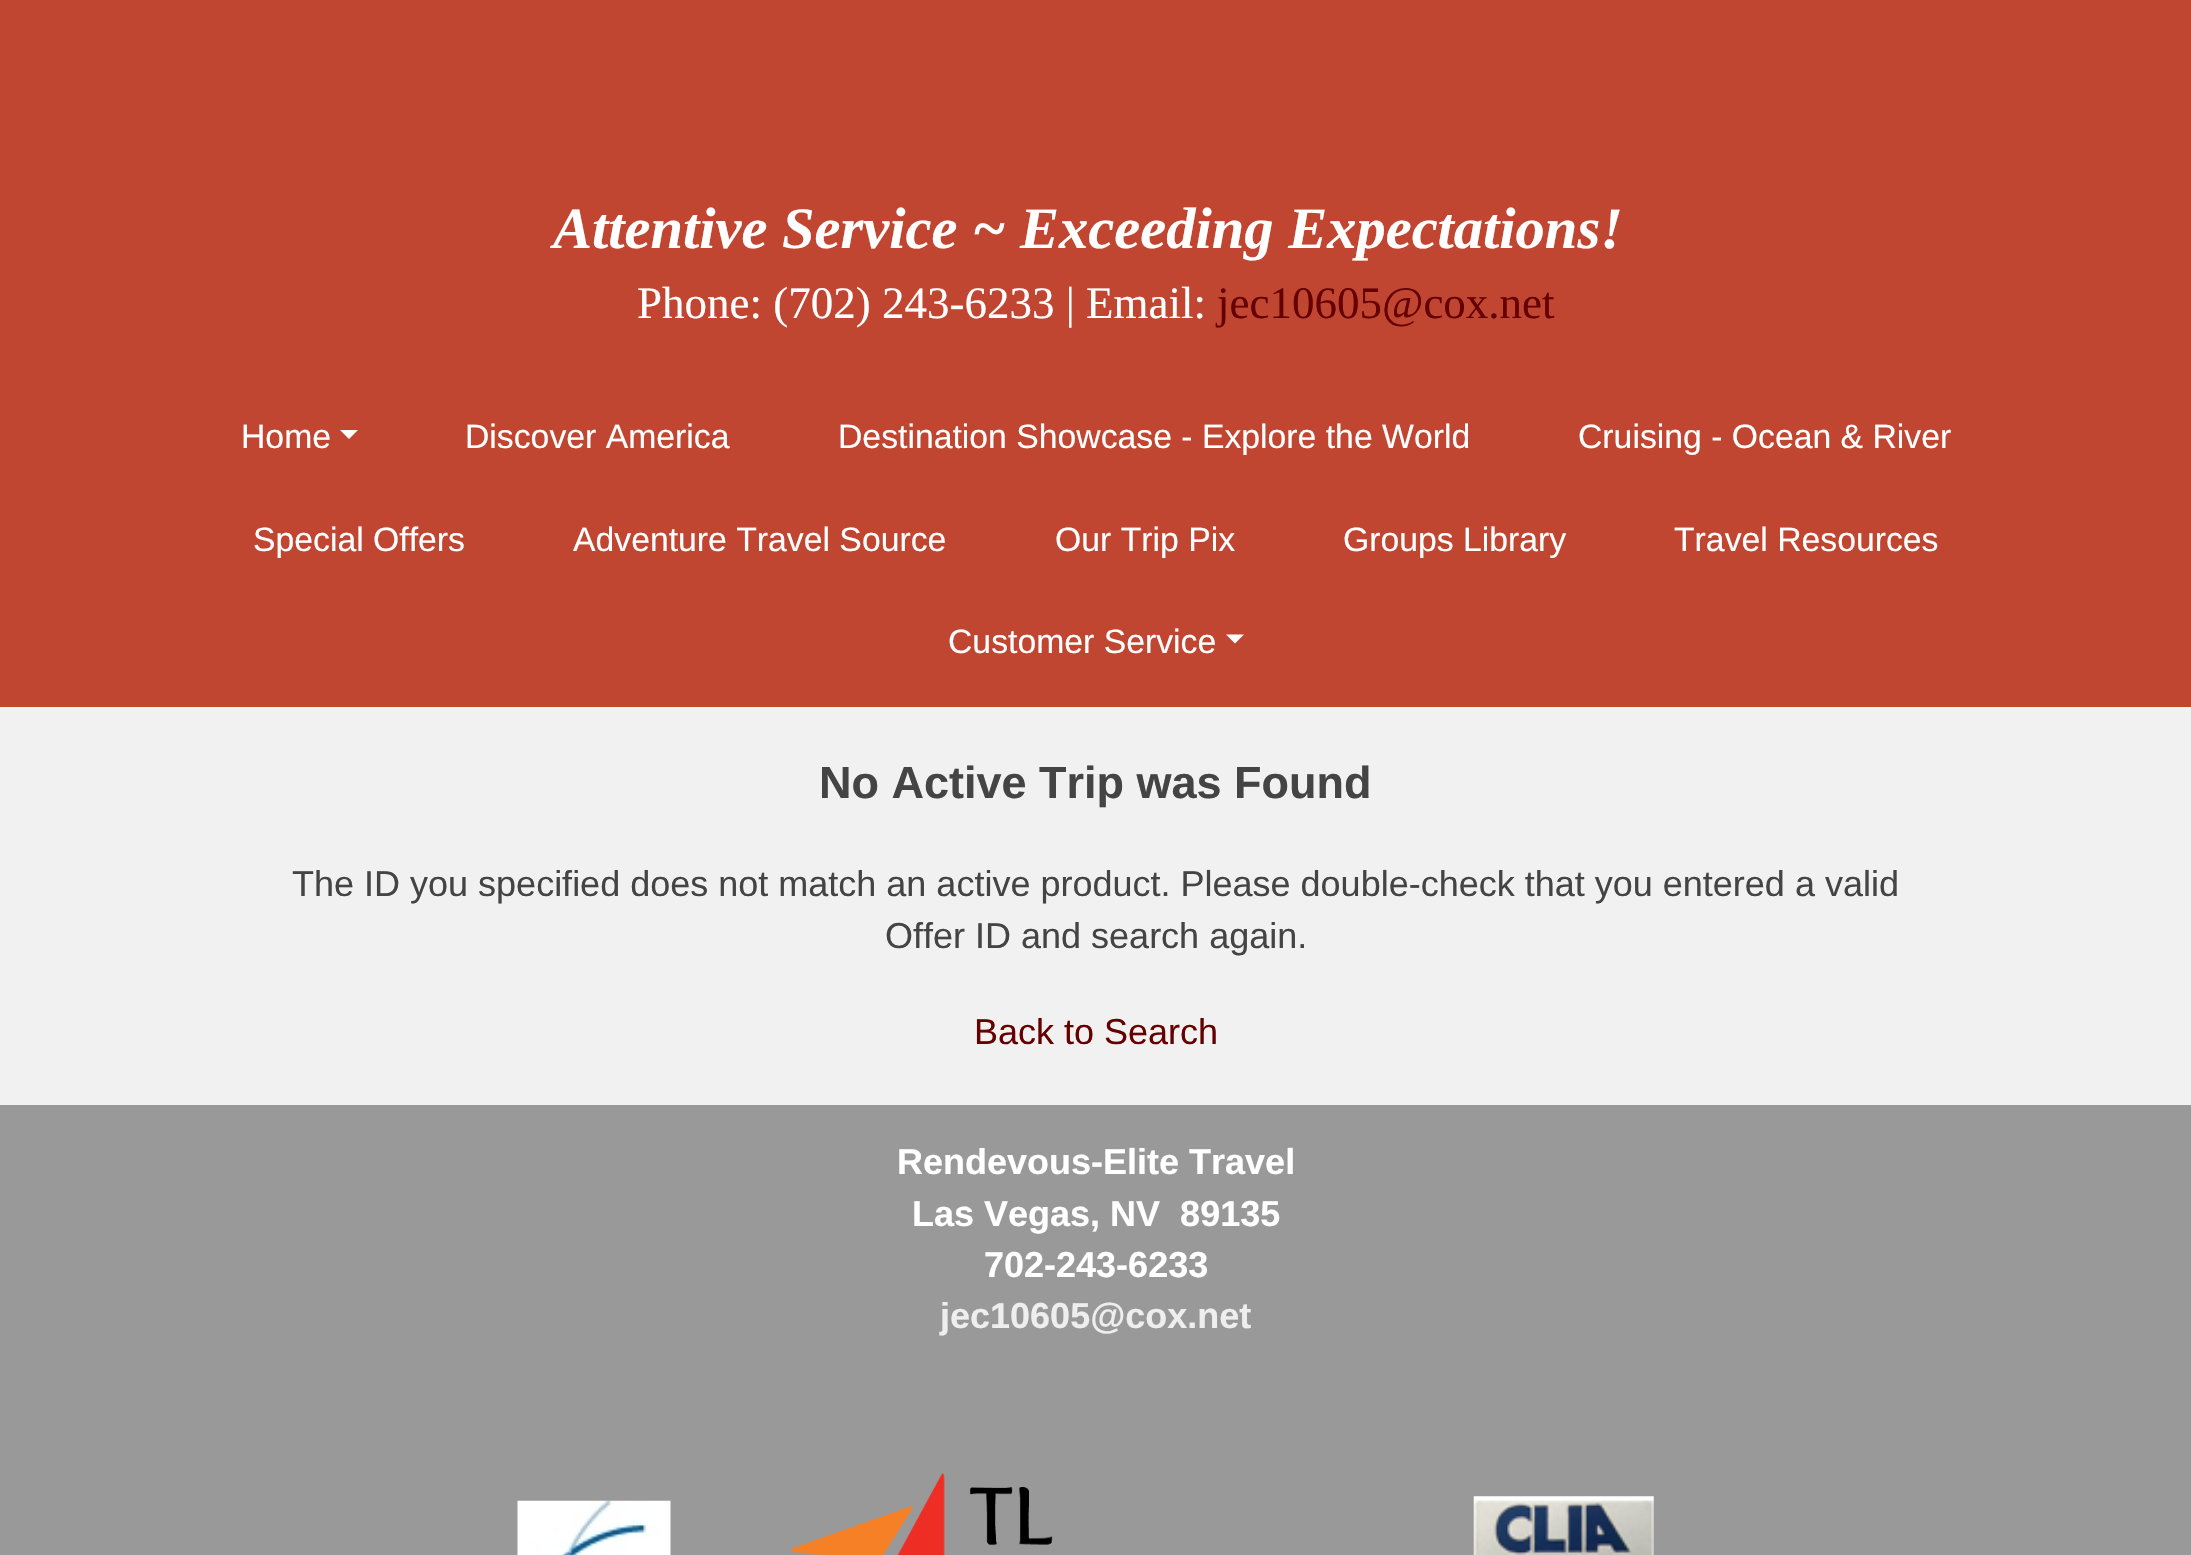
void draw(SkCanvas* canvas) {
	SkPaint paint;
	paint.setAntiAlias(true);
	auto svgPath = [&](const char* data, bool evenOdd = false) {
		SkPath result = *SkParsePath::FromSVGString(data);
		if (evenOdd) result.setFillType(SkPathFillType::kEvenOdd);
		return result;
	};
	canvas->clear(0xfff1f1f1);
	paint.setColor(0xffc04631);
	canvas->drawRect(SkRect::MakeXYWH(0, 0, 2191, 707), paint);
	SkFont f1(fontMgr->matchFamilyStyle("Liberation Serif", SkFontStyle::BoldItalic()), 58.5);
	f1.setSubpixel(true);
	paint.setColor(0xffffffff);
	canvas->drawString("Attentive Service ~ Exceeding Expectations!", 553, 248, f1, paint);
	SkFont f2(fontMgr->matchFamilyStyle("Liberation Serif", SkFontStyle::Normal()), 45);
	f2.setSubpixel(true);
	canvas->drawString("Phone: (702) 243-6233 | Email:", 637, 318, f2, paint);
	paint.setColor(0xff660000);
	canvas->drawString("jec10605@cox.net", 1217, 318, f2, paint);
	SkFont f3(fontMgr->matchFamilyStyle("Liberation Sans", SkFontStyle::Normal()), 33.75);
	f3.setSubpixel(true);
	paint.setColor(0xffffffff);
	canvas->drawString("Home", 241, 448, f3, paint);
	canvas->drawPath(svgPath("M340 430H358L349 439Z"), paint);
	canvas->drawString("Discover America", 465, 448, f3, paint);
	canvas->drawString("Destination Showcase - Explore the World", 838, 448, f3, paint);
	canvas->drawString("Cruising - Ocean & River", 1578, 448, f3, paint);
	canvas->drawString("Special Offers", 253, 551, f3, paint);
	canvas->drawString("Adventure Travel Source", 573, 551, f3, paint);
	canvas->drawString("Our Trip Pix", 1055, 551, f3, paint);
	canvas->drawString("Groups Library", 1343, 551, f3, paint);
	canvas->drawString("Travel Resources", 1674, 551, f3, paint);
	canvas->drawString("Customer Service", 948, 653, f3, paint);
	canvas->drawPath(svgPath("M1226 634.5H1244L1235 643.5Z"), paint);
	SkFont f4(fontMgr->matchFamilyStyle("Liberation Sans", SkFontStyle::Bold()), 45);
	f4.setSubpixel(true);
	paint.setColor(0xff444444);
	canvas->drawString("No Active Trip was Found", 819, 798, f4, paint);
	SkFont f5(fontMgr->matchFamilyStyle("Liberation Sans", SkFontStyle::Normal()), 36);
	f5.setSubpixel(true);
	canvas->drawString("The ID you specified does not match an active product. Please double-check that you entered a valid", 292, 896, f5, paint);
	canvas->drawString("Offer ID and search again.", 885, 948, f5, paint);
	paint.setColor(0xff660000);
	canvas->drawString("Back to Search", 974, 1044, f5, paint);
	paint.setColor(0xff999999);
	canvas->drawRect(SkRect::MakeXYWH(0, 1105, 2191, 450), paint);
	SkFont f6(fontMgr->matchFamilyStyle("Liberation Sans", SkFontStyle::Bold()), 36);
	f6.setSubpixel(true);
	paint.setColor(0xffffffff);
	canvas->drawString("Rendevous-Elite Travel", 897, 1174, f6, paint);
	canvas->drawString("Las Vegas, NV  89135", 912, 1226, f6, paint);
	canvas->drawString("702-243-6233", 984, 1277, f6, paint);
	paint.setColor(0xffeeeeee);
	canvas->drawString("jec10605@cox.net", 940, 1328, f6, paint);
	canvas->drawImageRect(SkImages::DeferredFromEncodedData(SkData::MakeFromFileName("img1.png")), SkRect::MakeXYWH(517, 1500, 154, 55), SkSamplingOptions());
	canvas->drawImageRect(SkImages::DeferredFromEncodedData(SkData::MakeFromFileName("img2.png")), SkRect::MakeXYWH(791, 1473, 262, 82), SkSamplingOptions());
	canvas->drawImageRect(SkImages::DeferredFromEncodedData(SkData::MakeFromFileName("img3.png")), SkRect::MakeXYWH(1473, 1496, 181, 59), SkSamplingOptions());
}
